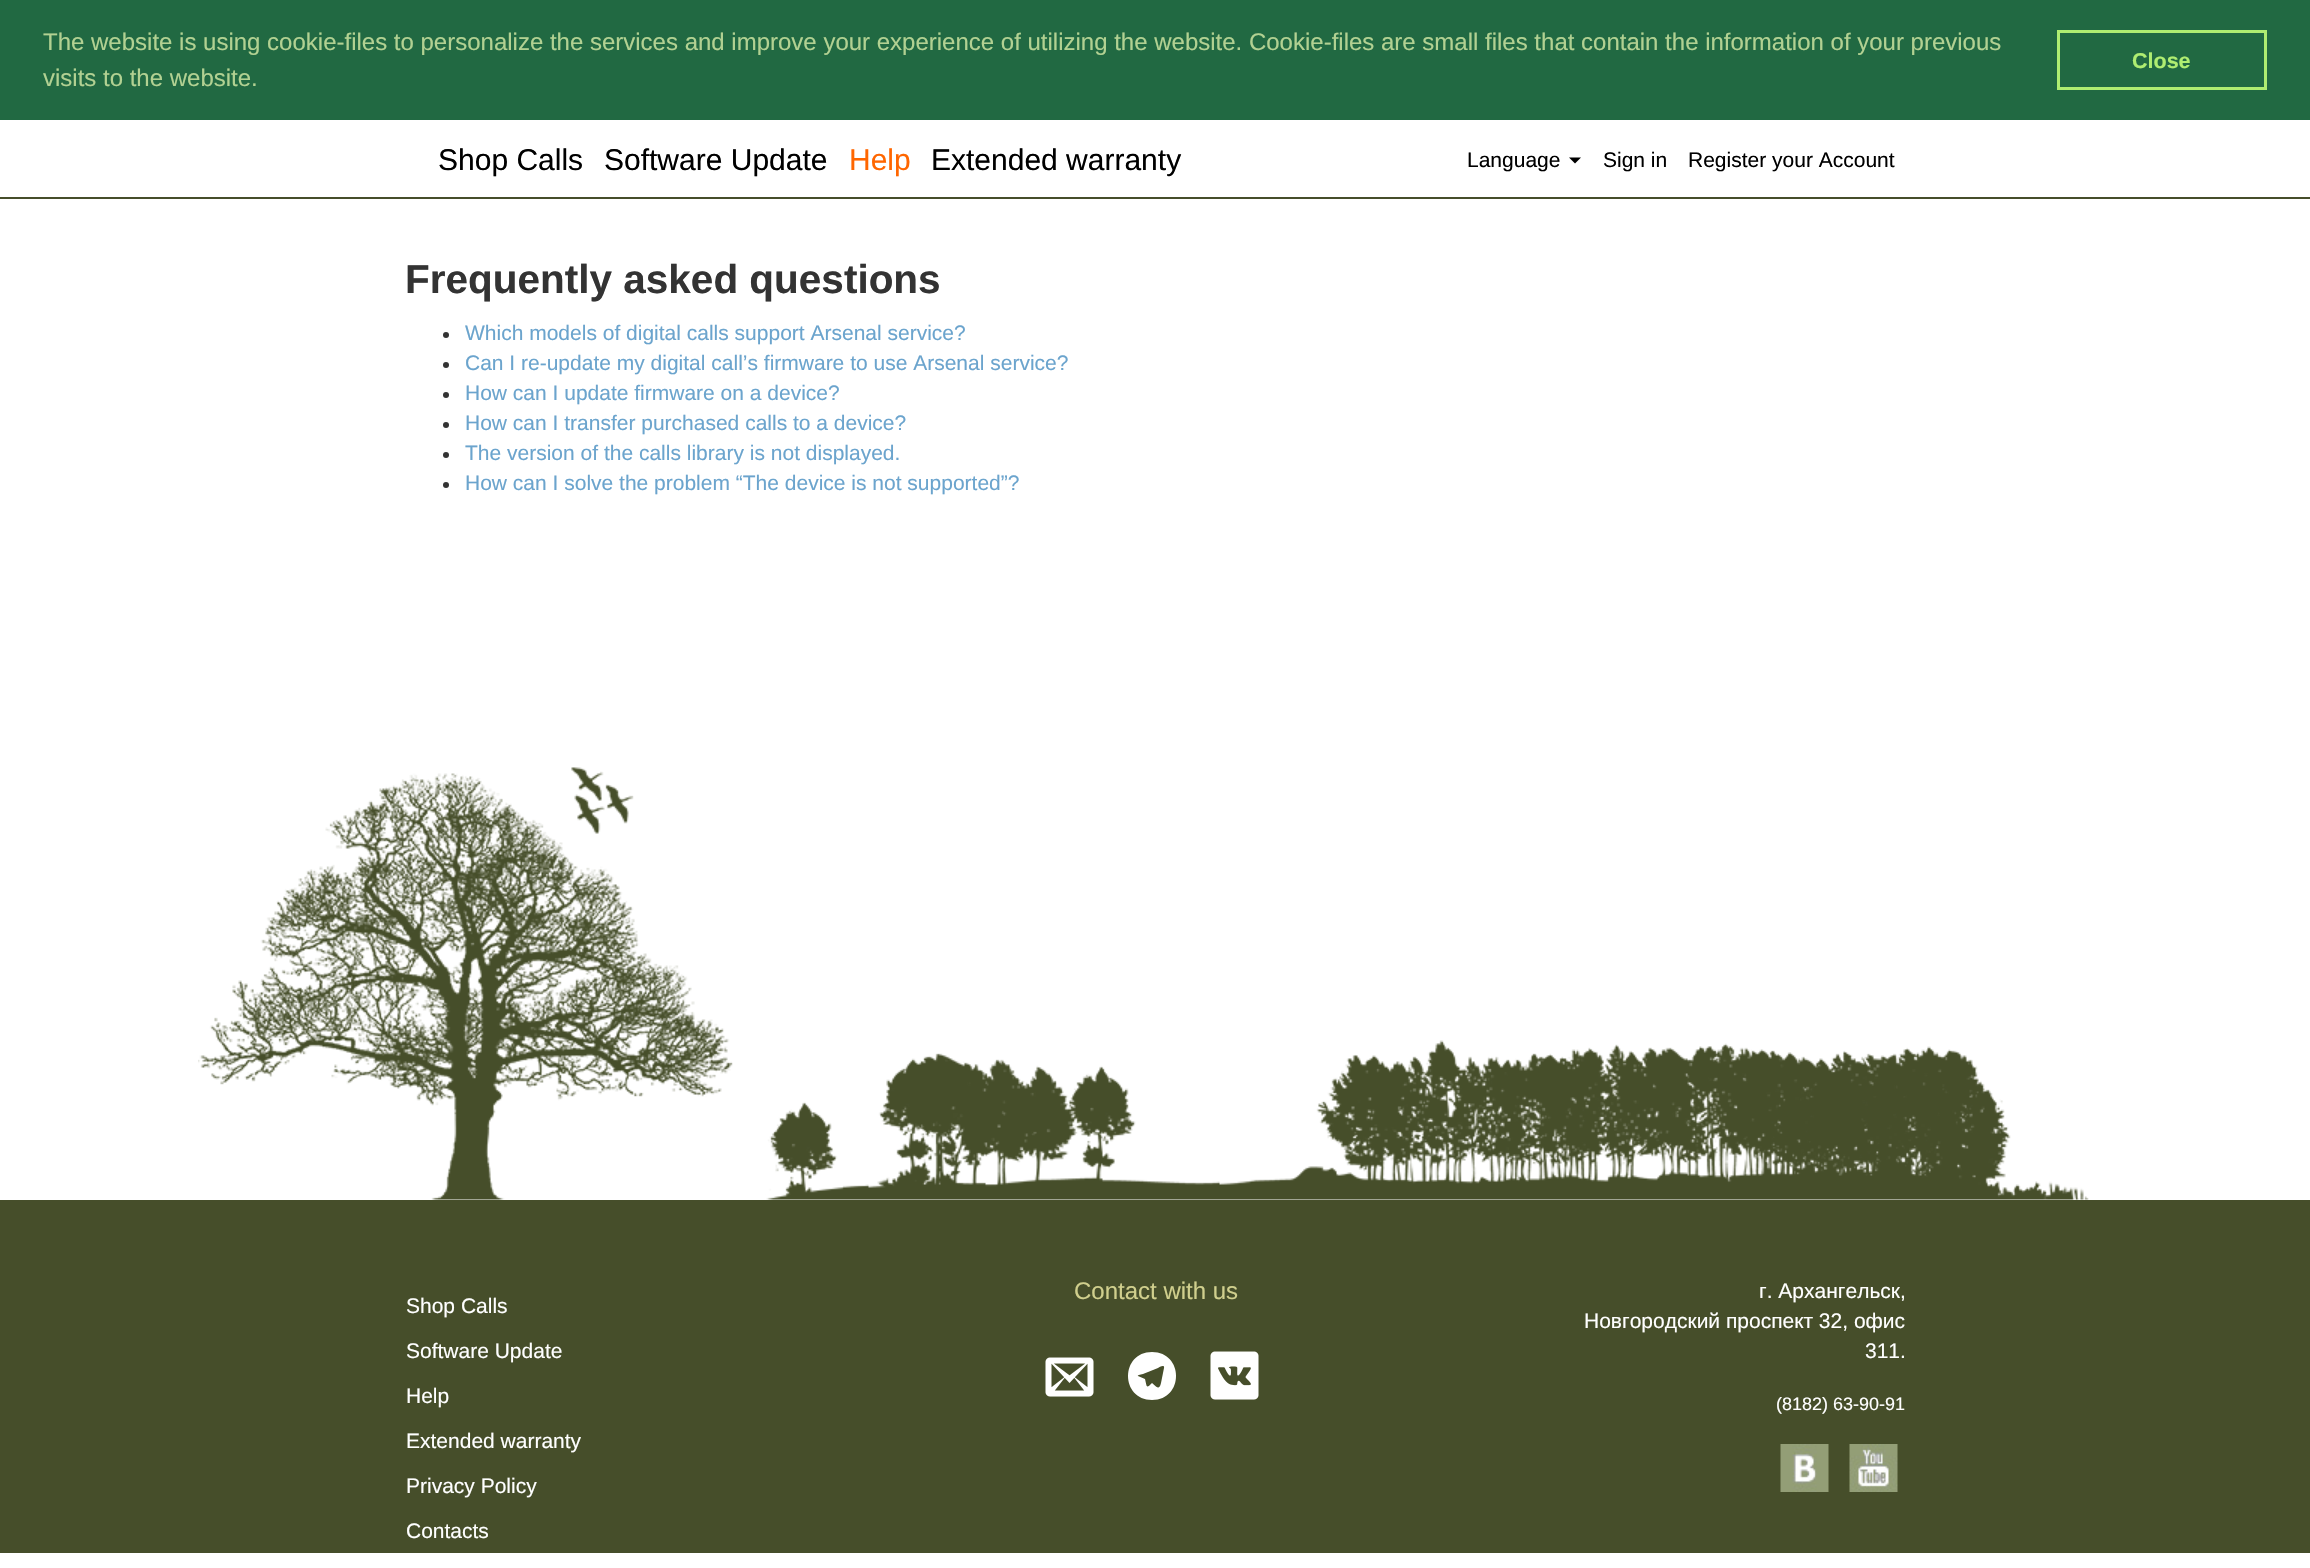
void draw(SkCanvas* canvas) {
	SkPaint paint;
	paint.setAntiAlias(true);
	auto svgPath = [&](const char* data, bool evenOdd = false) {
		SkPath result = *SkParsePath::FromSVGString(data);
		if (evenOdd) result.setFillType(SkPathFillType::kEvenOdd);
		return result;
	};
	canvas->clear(0xffffffff);
	paint.setColor(0xff216942);
	canvas->drawRect(SkRect::MakeXYWH(0, 0, 2310, 120), paint);
	SkFont f1(fontMgr->matchFamilyStyle("Liberation Sans", SkFontStyle::Normal()), 24);
	f1.setSubpixel(true);
	paint.setColor(0xffb2d192);
	canvas->drawString("The website is using cookie-files to personalize the services and improve your experience of utilizing the website. Cookie-files are small files that contain the information of your previous", 43, 50, f1, paint);
	canvas->drawString("visits to the website.", 43, 86, f1, paint);
	paint.setStroke(true);
	paint.setStrokeWidth(3);
	paint.setColor(0xffafed71);
	canvas->drawRect(SkRect::MakeXYWH(2058.5, 31.5, 207, 57), paint);
	SkFont f2(fontMgr->matchFamilyStyle("Liberation Sans", SkFontStyle::Bold()), 21.5);
	f2.setSubpixel(true);
	paint.setStroke(false);
	canvas->drawString("Close", 2132, 68, f2, paint);
	paint.setColor(0xff464e2a);
	canvas->drawRect(SkRect::MakeXYWH(0, 197, 2310, 2), paint);
	SkFont f3(fontMgr->matchFamilyStyle("Liberation Sans", SkFontStyle::Normal()), 30);
	f3.setSubpixel(true);
	paint.setColor(0xff000000);
	canvas->drawString("Shop Calls", 438, 170, f3, paint);
	canvas->drawString("Software Update", 604, 170, f3, paint);
	paint.setColor(0xffff6600);
	canvas->drawString("Help", 849, 170, f3, paint);
	paint.setColor(0xff000000);
	canvas->drawString("Extended warranty", 931, 170, f3, paint);
	SkFont f4(fontMgr->matchFamilyStyle("Liberation Sans", SkFontStyle::Normal()), 21);
	f4.setSubpixel(true);
	canvas->drawString("Language", 1467, 167, f4, paint);
	canvas->drawPath(svgPath("M1569 157.5H1581L1575 163.5Z"), paint);
	canvas->drawString("Sign in", 1603, 167, f4, paint);
	canvas->drawString("Register your Account", 1688, 167, f4, paint);
	SkFont f5(fontMgr->matchFamilyStyle("Liberation Sans", SkFontStyle::Bold()), 40.5);
	f5.setSubpixel(true);
	paint.setColor(0xff333333);
	canvas->drawString("Frequently asked questions", 405, 293, f5, paint);
	canvas->drawCircle(446, 335, 3, paint);
	paint.setColor(0xff6ba4cd);
	canvas->drawString("Which models of digital calls support Arsenal service?", 465, 340, f4, paint);
	paint.setColor(0xff333333);
	canvas->drawCircle(446, 365, 3, paint);
	paint.setColor(0xff6ba4cd);
	canvas->drawString("Can I re-update my digital call’s firmware to use Arsenal service?", 465, 370, f4, paint);
	paint.setColor(0xff333333);
	canvas->drawCircle(446, 395, 3, paint);
	paint.setColor(0xff6ba4cd);
	canvas->drawString("How can I update firmware on a device?", 465, 400, f4, paint);
	paint.setColor(0xff333333);
	canvas->drawCircle(446, 425, 3, paint);
	paint.setColor(0xff6ba4cd);
	canvas->drawString("How can I transfer purchased calls to a device?", 465, 430, f4, paint);
	paint.setColor(0xff333333);
	canvas->drawCircle(446, 455, 3, paint);
	paint.setColor(0xff6ba4cd);
	canvas->drawString("The version of the calls library is not displayed.", 465, 460, f4, paint);
	paint.setColor(0xff333333);
	canvas->drawCircle(446, 485, 3, paint);
	paint.setColor(0xff6ba4cd);
	canvas->drawString("How can I solve the problem “The device is not supported”?", 465, 490, f4, paint);
	paint.setColor(0xff464e2a);
	canvas->drawRect(SkRect::MakeXYWH(0, 1200, 2310, 353), paint);
	canvas->drawImageRect(SkImages::DeferredFromEncodedData(SkData::MakeFromFileName("img1.png")), SkRect::MakeXYWH(198, 767, 1891, 433), SkSamplingOptions());
	paint.setColor(0xffffffff);
	canvas->drawString("Shop Calls", 406, 1313, f4, paint);
	canvas->drawString("Software Update", 406, 1358, f4, paint);
	canvas->drawString("Help", 406, 1403, f4, paint);
	canvas->drawString("Extended warranty", 406, 1448, f4, paint);
	canvas->drawString("Privacy Policy", 406, 1493, f4, paint);
	canvas->drawString("Contacts", 406, 1538, f4, paint);
	paint.setColor(0xffd0cf8d);
	canvas->drawString("Contact with us", 1074, 1299, f1, paint);
	canvas->drawImageRect(SkImages::DeferredFromEncodedData(SkData::MakeFromFileName("img2.png")), SkRect::MakeXYWH(1045, 1357, 49, 40), SkSamplingOptions());
	paint.setColor(0xffffffff);
	canvas->drawPath(svgPath("M1152 1352C1120 1352 1120 1400 1152 1400C1184 1400 1184 1352 1152 1352ZM1164 1368L1161 1383C1159 1391 1157 1387 1152 1383C1146 1389 1147 1387 1145 1379L1138 1376C1137 1375 1140 1375 1143 1374L1158 1368C1159 1367 1165 1364 1164 1368Z"), paint);
	canvas->drawImageRect(SkImages::DeferredFromEncodedData(SkData::MakeFromFileName("img3.png")), SkRect::MakeXYWH(1210, 1351, 49, 49), SkSamplingOptions());
	canvas->drawString("г. Архангельск,", 1759, 1298, f4, paint);
	canvas->drawString("Новгородский проспект 32, офис", 1584, 1328, f4, paint);
	canvas->drawString("311.", 1865, 1358, f4, paint);
	SkFont f6(fontMgr->matchFamilyStyle("Liberation Sans", SkFontStyle::Normal()), 18);
	f6.setSubpixel(true);
	canvas->drawString("(8182) 63-90-91", 1776, 1410, f6, paint);
	canvas->drawImageRect(SkImages::DeferredFromEncodedData(SkData::MakeFromFileName("img4.png")), SkRect::MakeXYWH(1780, 1444, 49, 48), SkSamplingOptions());
	canvas->drawImageRect(SkImages::DeferredFromEncodedData(SkData::MakeFromFileName("img5.png")), SkRect::MakeXYWH(1849, 1444, 49, 48), SkSamplingOptions());
}
